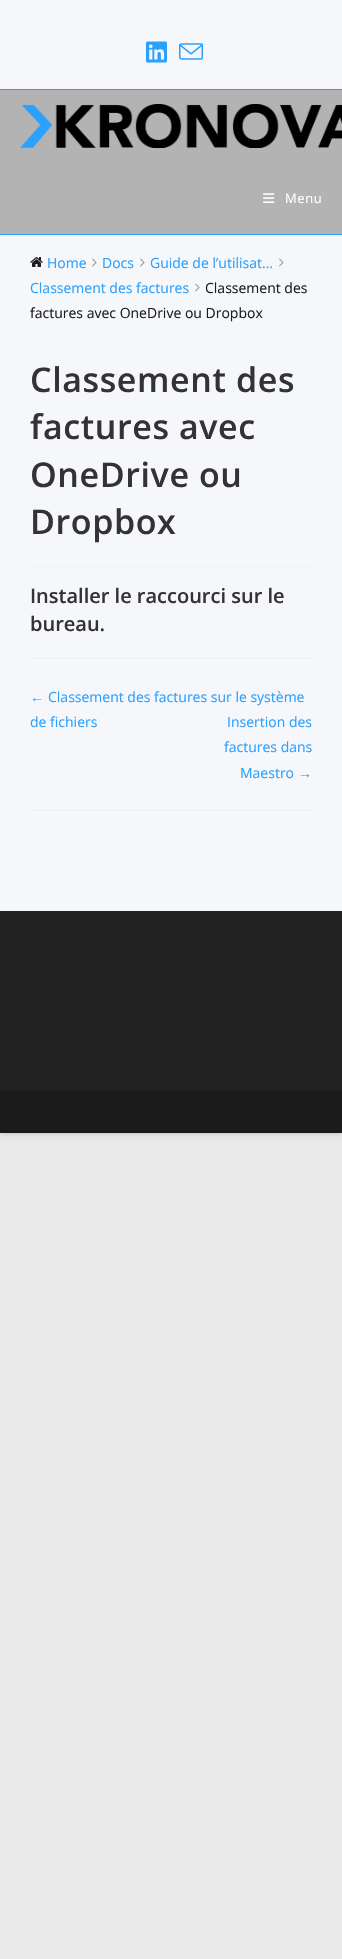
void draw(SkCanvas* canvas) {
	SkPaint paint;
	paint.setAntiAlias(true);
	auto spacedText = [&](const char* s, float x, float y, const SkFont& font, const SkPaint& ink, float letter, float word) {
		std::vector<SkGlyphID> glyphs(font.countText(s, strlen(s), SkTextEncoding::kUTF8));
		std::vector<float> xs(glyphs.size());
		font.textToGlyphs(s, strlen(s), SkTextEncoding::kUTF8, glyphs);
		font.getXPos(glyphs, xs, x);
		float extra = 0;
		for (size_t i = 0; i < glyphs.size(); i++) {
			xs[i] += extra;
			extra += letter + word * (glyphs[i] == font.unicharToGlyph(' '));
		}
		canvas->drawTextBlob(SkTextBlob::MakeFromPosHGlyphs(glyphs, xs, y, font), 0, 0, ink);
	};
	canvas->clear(0xffe9e9e9);
	paint.setColor(0x26000000);
	paint.setMaskFilter(SkMaskFilter::MakeBlur(kNormal_SkBlurStyle, 2));
	canvas->drawRect(SkRect::MakeXYWH(0, 1, 342, 1133), paint);
	paint.setMaskFilter(nullptr);
	paint.setColor(0xfff5f7fa);
	canvas->drawRect(SkRect::MakeXYWH(0, 0, 342, 89), paint);
	paint.setColor(0xff2aa0ff);
	canvas->drawRect(SkRect::MakeXYWH(0, 89, 342, 1), paint);
	canvas->drawImageRect(SkImages::DeferredFromEncodedData(SkData::MakeFromFileName("img1.png")), SkRect::MakeXYWH(146, 41, 21, 22), SkSamplingOptions());
	canvas->drawImageRect(SkImages::DeferredFromEncodedData(SkData::MakeFromFileName("img2.png")), SkRect::MakeXYWH(179, 43, 25, 17), SkSamplingOptions());
	canvas->drawRect(SkRect::MakeXYWH(0, 234, 342, 1), paint);
	paint.setColor(0xffb3b3b3);
	canvas->drawRect(SkRect::MakeXYWH(0, 90, 342, 144), paint);
	canvas->drawImageRect(SkImages::DeferredFromEncodedData(SkData::MakeFromFileName("img3.png")), SkRect::MakeXYWH(20, 104, 322, 44), SkSamplingOptions());
	canvas->drawImageRect(SkImages::DeferredFromEncodedData(SkData::MakeFromFileName("img4.png")), SkRect::MakeXYWH(263, 193, 12, 10), SkSamplingOptions());
	SkFont f1(fontMgr->matchFamilyStyle("Open Sans", SkFontStyle::Normal()), 13);
	f1.setSubpixel(true);
	paint.setColor(0xffffffff);
	spacedText("Menu", 285, 203, f1, paint, 0.6, 0);
	paint.setColor(0xfff5f7fa);
	canvas->drawRect(SkRect::MakeXYWH(0, 235, 342, 676), paint);
	canvas->drawImageRect(SkImages::DeferredFromEncodedData(SkData::MakeFromFileName("img5.png")), SkRect::MakeXYWH(30, 257, 13, 10), SkSamplingOptions());
	SkFont f2(fontMgr->matchFamilyStyle("Open Sans", SkFontStyle::Normal()), 14);
	f2.setSubpixel(true);
	paint.setColor(0xff2aa0ff);
	canvas->drawString("Home", 47, 268, f2, paint);
	canvas->drawImageRect(SkImages::DeferredFromEncodedData(SkData::MakeFromFileName("img6.png")), SkRect::MakeXYWH(92, 258, 5, 9), SkSamplingOptions());
	canvas->drawString("Docs", 102, 268, f2, paint);
	canvas->drawImageRect(SkImages::DeferredFromEncodedData(SkData::MakeFromFileName("img6.png")), SkRect::MakeXYWH(140, 258, 5, 9), SkSamplingOptions());
	canvas->drawString("Guide de l’utilisat...", 150, 268, f2, paint);
	canvas->drawImageRect(SkImages::DeferredFromEncodedData(SkData::MakeFromFileName("img6.png")), SkRect::MakeXYWH(279, 258, 5, 9), SkSamplingOptions());
	canvas->drawString("Classement des factures", 30, 293, f2, paint);
	canvas->drawImageRect(SkImages::DeferredFromEncodedData(SkData::MakeFromFileName("img6.png")), SkRect::MakeXYWH(195, 283, 5, 9), SkSamplingOptions());
	paint.setColor(0xff1e1e1e);
	canvas->drawString("Classement des", 205, 293, f2, paint);
	canvas->drawString("factures avec OneDrive ou Dropbox", 30, 318, f2, paint);
	paint.setColor(0xfff1f1f1);
	canvas->drawRect(SkRect::MakeXYWH(30, 566, 282, 1), paint);
	SkFont f3(fontMgr->matchFamilyStyle("Open Sans", SkFontStyle(600, SkFontStyle::kNormal_Width, SkFontStyle::kUpright_Slant)), 34);
	f3.setSubpixel(true);
	paint.setColor(0xff333333);
	spacedText("Classement des", 30, 392, f3, paint, 0.6, 0);
	spacedText("factures avec", 30, 439, f3, paint, 0.6, 0);
	spacedText("OneDrive ou", 30, 487, f3, paint, 0.6, 0);
	spacedText("Dropbox", 30, 534, f3, paint, 0.6, 0);
	SkFont f4(fontMgr->matchFamilyStyle("Open Sans", SkFontStyle(600, SkFontStyle::kNormal_Width, SkFontStyle::kUpright_Slant)), 20);
	f4.setSubpixel(true);
	canvas->drawString("Installer le raccourci sur le", 30, 603, f4, paint);
	canvas->drawString("bureau.", 30, 631, f4, paint);
	paint.setColor(0xffeeeeee);
	canvas->drawRect(SkRect::MakeXYWH(30, 658, 282, 1), paint);
	canvas->drawRect(SkRect::MakeXYWH(30, 810, 282, 1), paint);
	SkFont f5(fontMgr->matchFamilyStyle("Liberation Sans", SkFontStyle::Normal()), 14);
	f5.setSubpixel(true);
	paint.setColor(0xff2aa0ff);
	canvas->drawString("←", 30, 702, f5, paint);
	canvas->drawString("Classement des factures sur le système", 48, 702, f2, paint);
	canvas->drawString("de fichiers", 30, 727, f2, paint);
	canvas->drawString("Insertion des", 227, 727, f2, paint);
	canvas->drawString("factures dans", 224, 752, f2, paint);
	canvas->drawString("Maestro", 240, 778, f2, paint);
	canvas->drawString("→", 298, 778, f5, paint);
	paint.setColor(0xff222222);
	canvas->drawRect(SkRect::MakeXYWH(0, 911, 342, 180), paint);
	paint.setColor(0xff1b1b1b);
	canvas->drawRect(SkRect::MakeXYWH(0, 1091, 342, 42), paint);
}
